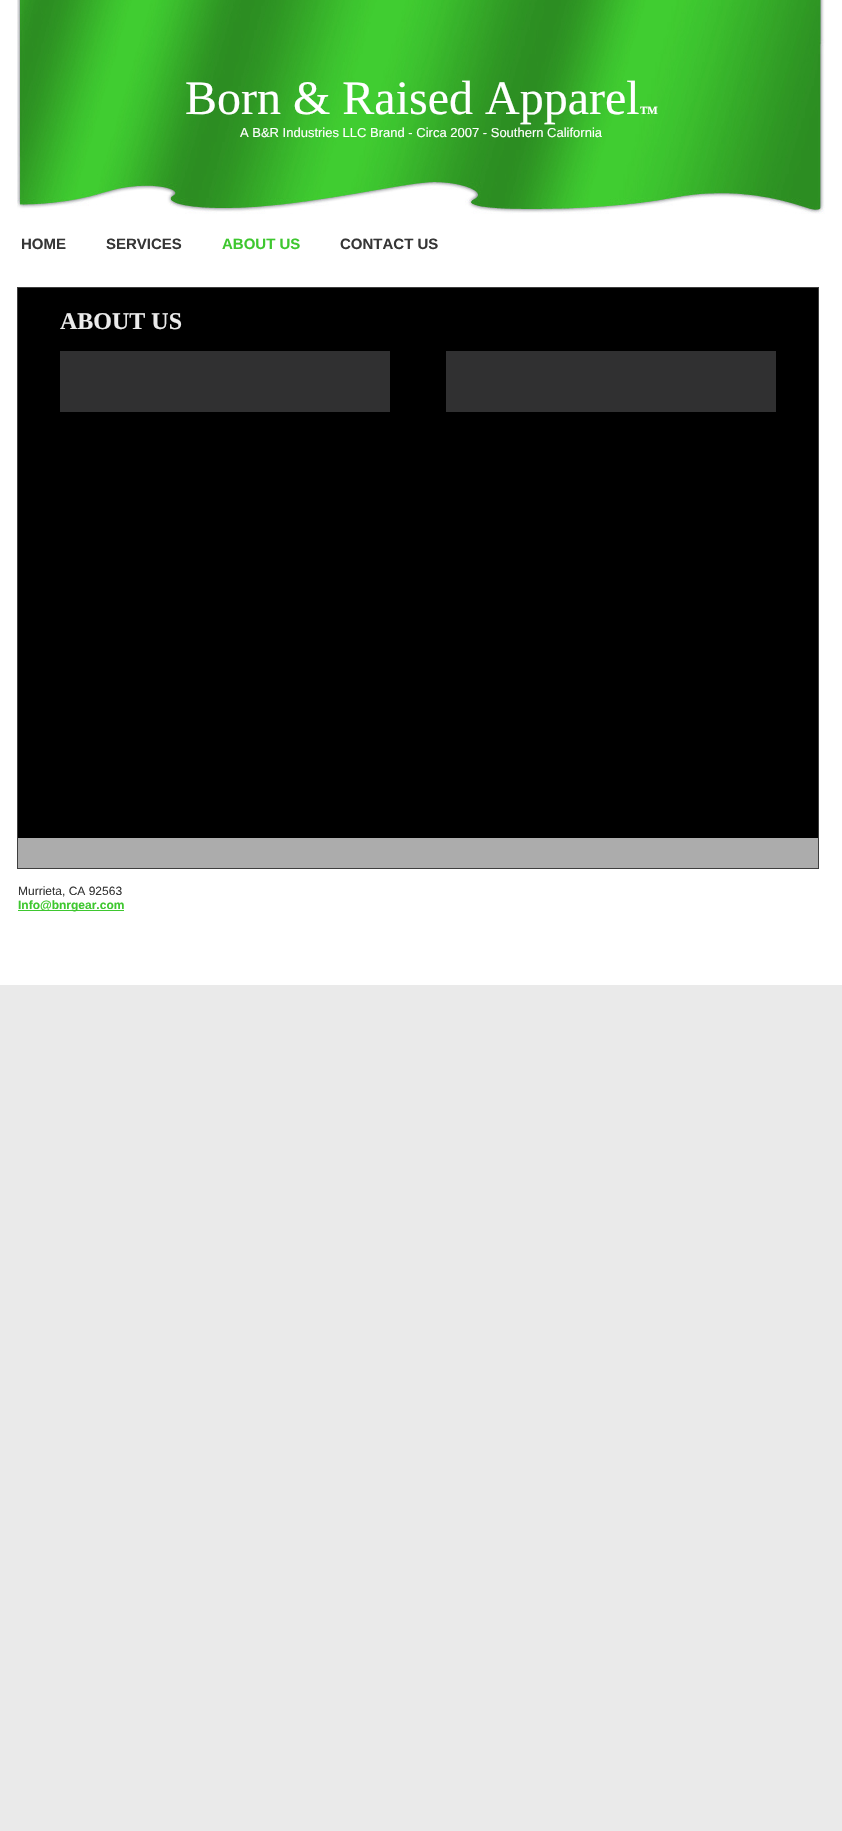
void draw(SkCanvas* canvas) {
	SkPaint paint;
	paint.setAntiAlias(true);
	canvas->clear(0xffeaeaea);
	paint.setColor(0xffffffff);
	canvas->drawRect(SkRect::MakeXYWH(0, 0, 842, 985), paint);
	canvas->drawImageRect(SkImages::DeferredFromEncodedData(SkData::MakeFromFileName("img1.png")), SkRect::MakeXYWH(17, 0, 808, 214), SkSamplingOptions());
	SkFont f1(fontMgr->matchFamilyStyle("Liberation Serif", SkFontStyle::Normal()), 48);
	f1.setSubpixel(true);
	canvas->drawString("Born & Raised Apparel", 185, 114, f1, paint);
	SkFont f2(fontMgr->matchFamilyStyle("Liberation Serif", SkFontStyle::Bold()), 11);
	f2.setSubpixel(true);
	canvas->drawString("TM", 640, 114, f2, paint);
	SkFont f3(fontMgr->matchFamilyStyle("Liberation Sans", SkFontStyle::Normal()), 13);
	f3.setSubpixel(true);
	canvas->drawString("A B&R Industries LLC Brand - Circa 2007 - Southern California", 240, 137, f3, paint);
	SkFont f4(fontMgr->matchFamilyStyle("Liberation Sans", SkFontStyle::Bold()), 15);
	f4.setSubpixel(true);
	paint.setColor(0xff363636);
	canvas->drawString("HOME", 21, 249, f4, paint);
	canvas->drawString("SERVICES", 106, 249, f4, paint);
	paint.setColor(0xff3ec72f);
	canvas->drawString("ABOUT US", 222, 249, f4, paint);
	paint.setColor(0xff363636);
	canvas->drawString("CONTACT US", 340, 249, f4, paint);
	paint.setColor(0xff000000);
	canvas->drawRect(SkRect::MakeXYWH(18, 288, 800, 550), paint);
	paint.setColor(0xff3e3e3e);
	canvas->drawRect(SkRect::MakeXYWH(17, 287, 802, 1), paint);
	canvas->drawRect(SkRect::MakeXYWH(818, 287, 1, 582), paint);
	canvas->drawRect(SkRect::MakeXYWH(17, 287, 1, 551), paint);
	SkFont f5(fontMgr->matchFamilyStyle("Liberation Serif", SkFontStyle::Bold()), 24);
	f5.setSubpixel(true);
	paint.setColor(0xffebebeb);
	canvas->drawString("ABOUT US", 60, 329, f5, paint);
	paint.setColor(0xff303031);
	canvas->drawRect(SkRect::MakeXYWH(60, 351, 330, 61), paint);
	canvas->drawRect(SkRect::MakeXYWH(446, 351, 330, 61), paint);
	paint.setColor(0xffacacac);
	canvas->drawRect(SkRect::MakeXYWH(18, 838, 800, 30), paint);
	paint.setColor(0xff3e3e3e);
	canvas->drawRect(SkRect::MakeXYWH(17, 868, 802, 1), paint);
	canvas->drawRect(SkRect::MakeXYWH(17, 838, 1, 31), paint);
	SkFont f6(fontMgr->matchFamilyStyle("Liberation Sans", SkFontStyle::Normal()), 12);
	f6.setSubpixel(true);
	paint.setColor(0xff363636);
	canvas->drawString("Murrieta, CA 92563", 18, 895, f6, paint);
	paint.setColor(0xff3ec72f);
	canvas->drawRect(SkRect::MakeXYWH(18, 910, 78, 1), paint);
	SkFont f7(fontMgr->matchFamilyStyle("Liberation Sans", SkFontStyle::Bold()), 12);
	f7.setSubpixel(true);
	canvas->drawString("Info@bnrgear.com", 18, 909, f7, paint);
	canvas->drawRect(SkRect::MakeXYWH(96, 910, 28, 1), paint);
}
